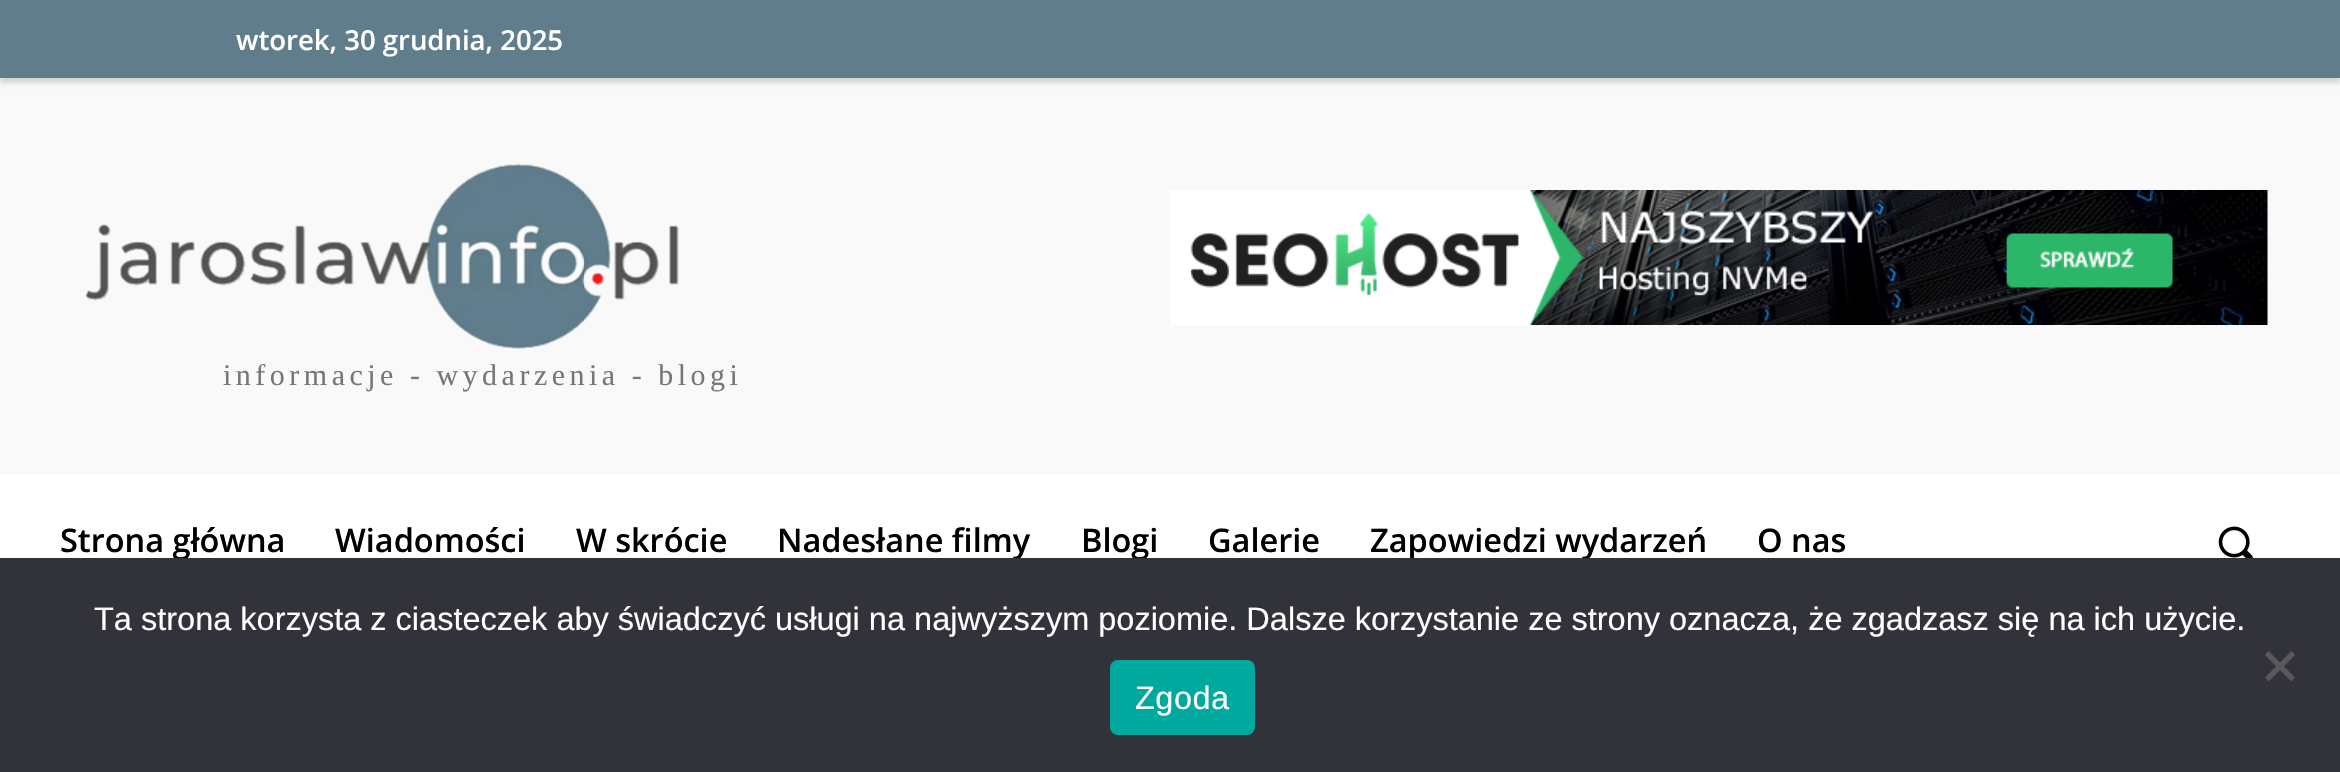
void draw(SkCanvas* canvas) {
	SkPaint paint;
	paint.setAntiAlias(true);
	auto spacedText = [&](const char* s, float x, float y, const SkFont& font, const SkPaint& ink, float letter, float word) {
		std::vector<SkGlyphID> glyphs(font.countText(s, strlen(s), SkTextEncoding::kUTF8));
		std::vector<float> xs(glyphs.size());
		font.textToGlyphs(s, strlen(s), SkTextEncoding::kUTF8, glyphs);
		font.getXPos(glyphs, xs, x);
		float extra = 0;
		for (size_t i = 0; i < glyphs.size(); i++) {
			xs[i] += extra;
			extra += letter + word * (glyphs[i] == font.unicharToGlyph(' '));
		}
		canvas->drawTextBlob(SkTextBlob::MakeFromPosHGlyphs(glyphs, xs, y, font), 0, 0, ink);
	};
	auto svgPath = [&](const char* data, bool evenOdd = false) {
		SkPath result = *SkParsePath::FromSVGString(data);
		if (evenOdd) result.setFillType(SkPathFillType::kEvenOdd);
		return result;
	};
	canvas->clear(0xfff9f9f9);
	paint.setColor(0xff607d8b);
	canvas->drawRect(SkRect::MakeXYWH(0, 0, 2340, 78), paint);
	canvas->save();
	canvas->clipPath(svgPath("M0 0H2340V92H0ZM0 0H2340V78H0Z", true), true);
	paint.setColor(0x260a0000);
	paint.setMaskFilter(SkMaskFilter::MakeBlur(kNormal_SkBlurStyle, 2.5));
	canvas->drawRect(SkRect::MakeXYWH(0, 5, 2340, 78), paint);
	paint.setMaskFilter(nullptr);
	canvas->restore();
	SkFont f1(fontMgr->matchFamilyStyle("Open Sans", SkFontStyle(600, SkFontStyle::kNormal_Width, SkFontStyle::kUpright_Slant)), 27.5);
	f1.setSubpixel(true);
	paint.setColor(0xffffffff);
	canvas->drawString("wtorek, 30 grudnia, 2025", 236, 50, f1, paint);
	canvas->drawImageRect(SkImages::DeferredFromEncodedData(SkData::MakeFromFileName("img1.png")), SkRect::MakeXYWH(1170, 190, 1098, 135), SkSamplingOptions());
	canvas->drawImageRect(SkImages::DeferredFromEncodedData(SkData::MakeFromFileName("img2.png")), SkRect::MakeXYWH(85, 163, 594, 186), SkSamplingOptions());
	SkFont f2(fontMgr->matchFamilyStyle("Liberation Serif", SkFontStyle::Normal()), 30);
	f2.setSubpixel(true);
	paint.setColor(0xff767676);
	spacedText("informacje - wydarzenia - blogi", 223, 385, f2, paint, 4.5, 0);
	paint.setColor(0xffffffff);
	canvas->drawRect(SkRect::MakeXYWH(0, 475, 2340, 83), paint);
	SkFont f3(fontMgr->matchFamilyStyle("Open Sans", SkFontStyle(600, SkFontStyle::kNormal_Width, SkFontStyle::kUpright_Slant)), 32.5);
	f3.setSubpixel(true);
	paint.setColor(0xff000000);
	canvas->drawString("Strona główna", 60, 552, f3, paint);
	canvas->drawString("Wiadomości", 335, 552, f3, paint);
	canvas->drawString("W skrócie", 576, 552, f3, paint);
	canvas->drawString("Nadesłane filmy", 777, 552, f3, paint);
	canvas->drawString("Blogi", 1081, 552, f3, paint);
	canvas->drawString("Galerie", 1208, 552, f3, paint);
	canvas->drawString("Zapowiedzi wydarzeń", 1370, 552, f3, paint);
	canvas->drawString("O nas", 1757, 552, f3, paint);
	canvas->drawImageRect(SkImages::DeferredFromEncodedData(SkData::MakeFromFileName("img3.png")), SkRect::MakeXYWH(2218, 526, 35, 32), SkSamplingOptions());
	paint.setColor(0xff32323a);
	canvas->drawRect(SkRect::MakeXYWH(0, 558, 2340, 214), paint);
	SkFont f4(fontMgr->matchFamilyStyle("Liberation Sans", SkFontStyle::Normal()), 32.5);
	f4.setSubpixel(true);
	paint.setColor(0xffffffff);
	canvas->drawString("Ta strona korzysta z ciasteczek aby świadczyć usługi na najwyższym poziomie. Dalsze korzystanie ze strony oznacza, że zgadzasz się na ich użycie.", 94, 630, f4, paint);
	paint.setColor(0xff59595d);
	canvas->drawPath(svgPath("M2291.5 651L2295 655L2268.5 681.5L2265 677.5Z"), paint);
	canvas->drawPath(svgPath("M2265 655L2268.5 651L2295 677.5L2291.5 681.5Z"), paint);
	paint.setColor(0xff00a99d);
	canvas->drawRoundRect(SkRect::MakeXYWH(1110, 660, 145, 75), 8, 8, paint);
	paint.setColor(0xffffffff);
	spacedText("Zgoda", 1135, 709, f4, paint, 0.5, 0);
}
